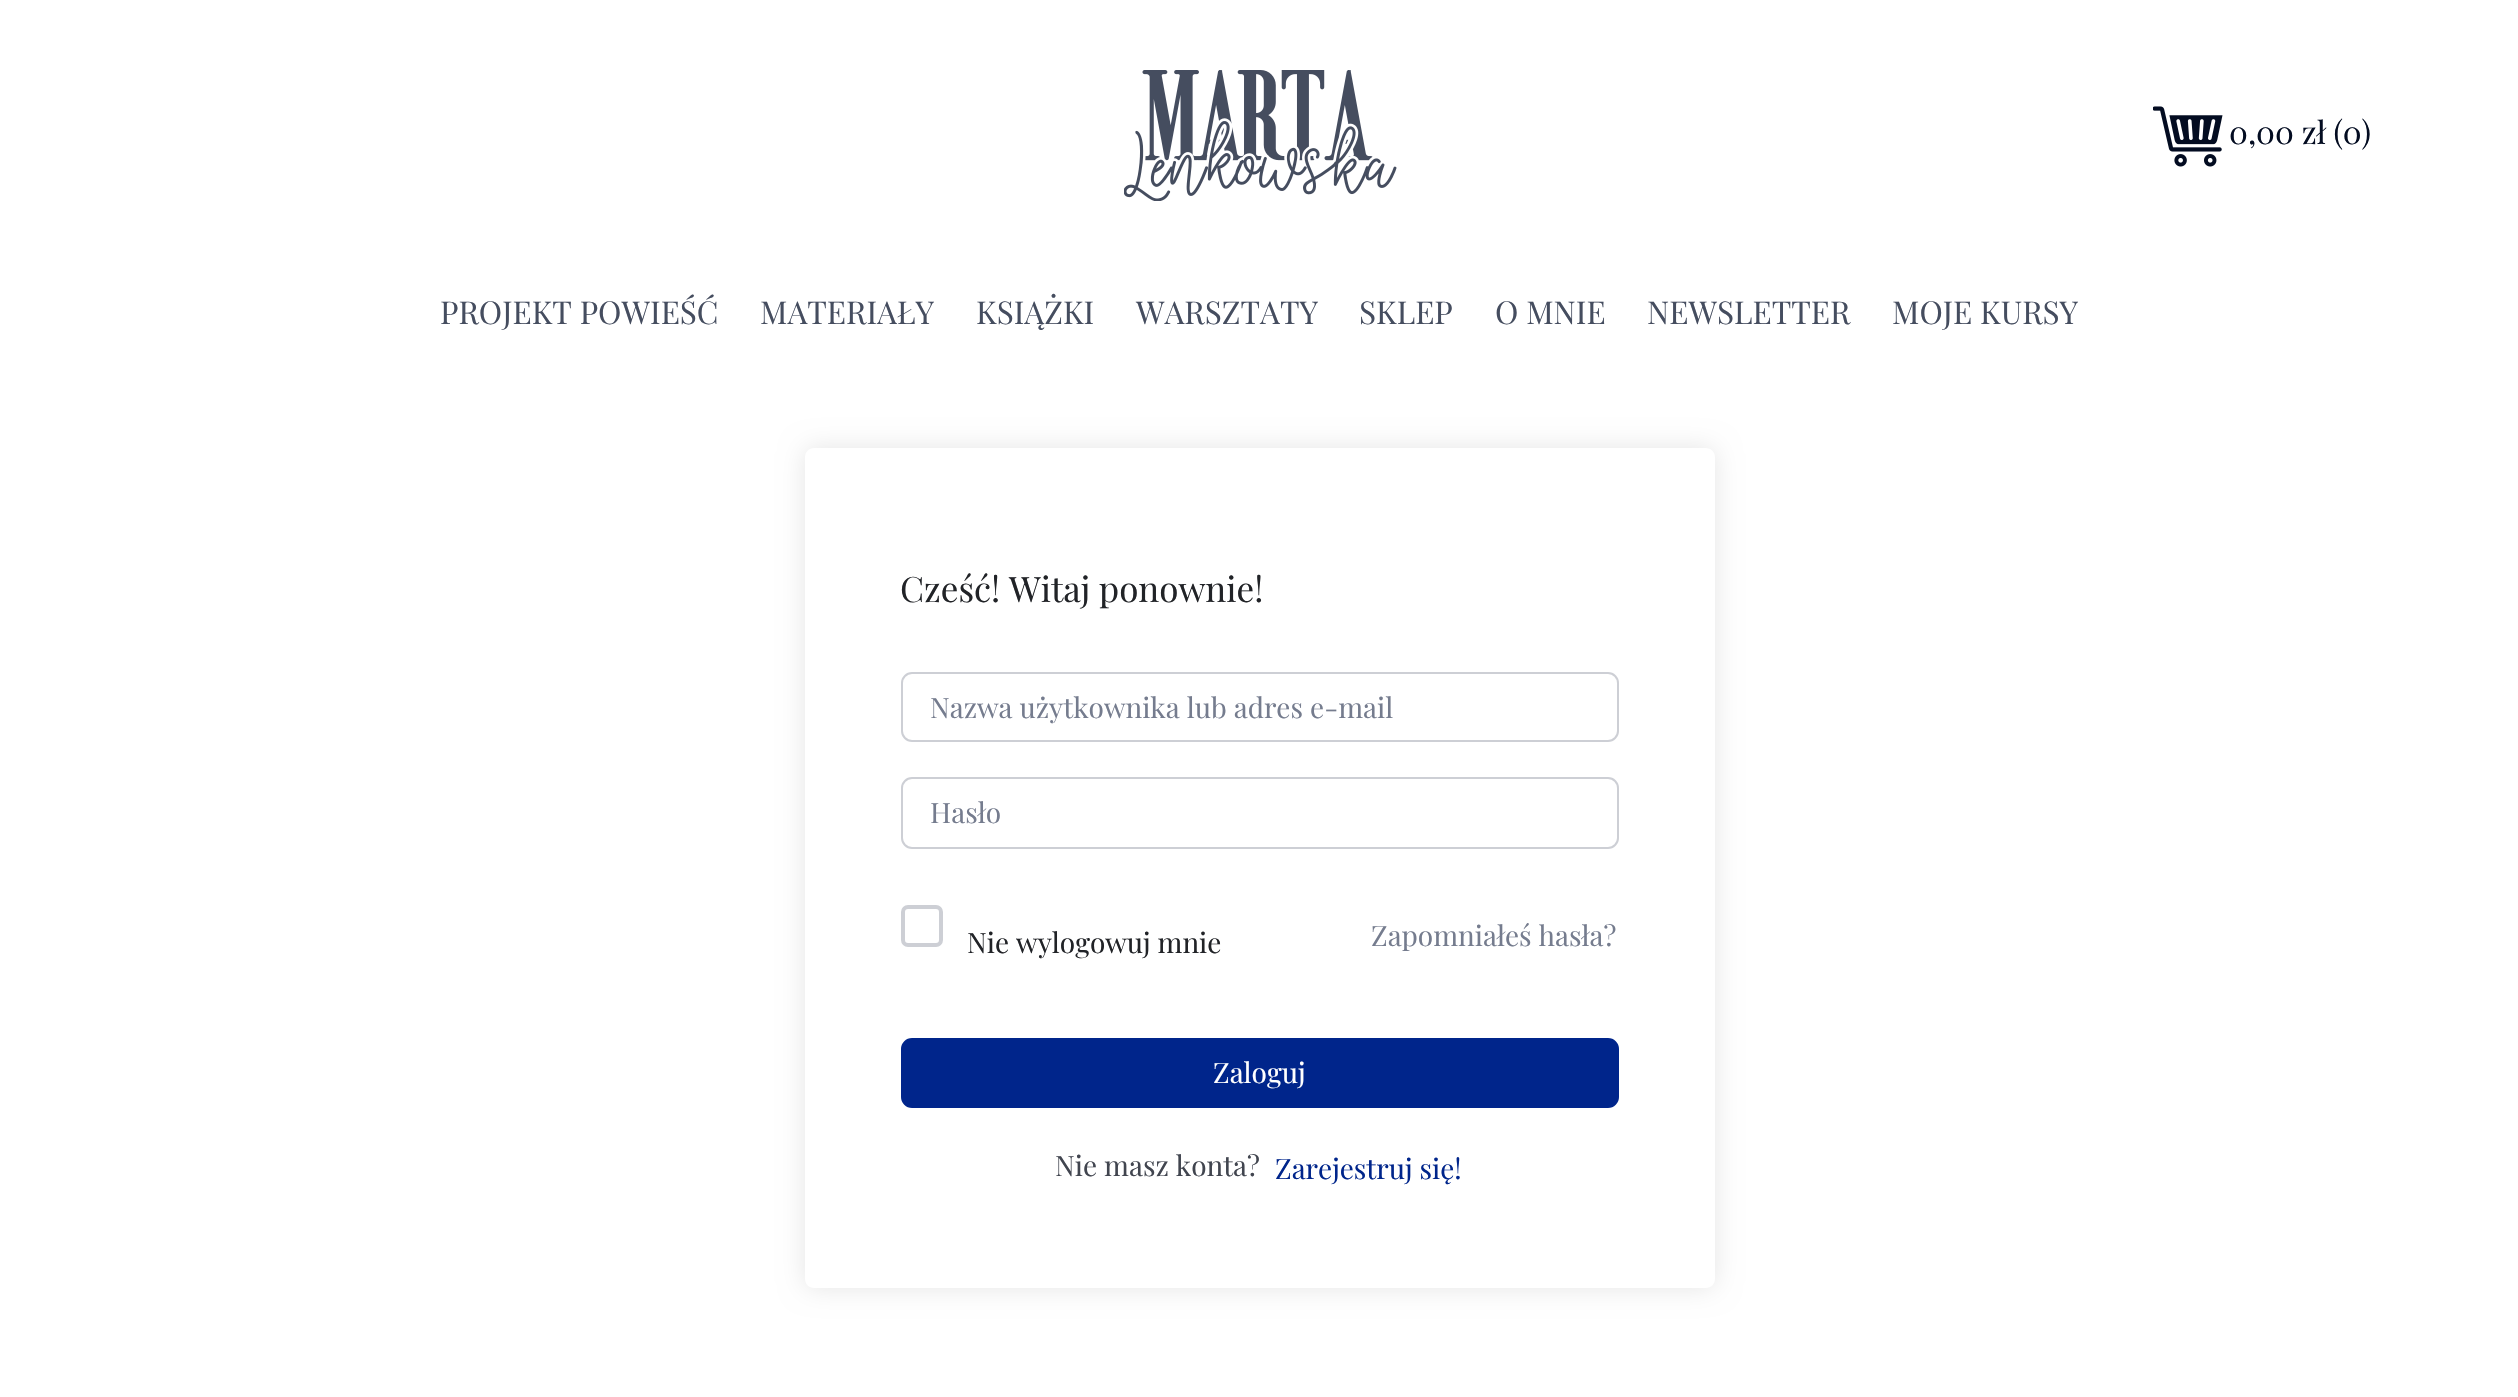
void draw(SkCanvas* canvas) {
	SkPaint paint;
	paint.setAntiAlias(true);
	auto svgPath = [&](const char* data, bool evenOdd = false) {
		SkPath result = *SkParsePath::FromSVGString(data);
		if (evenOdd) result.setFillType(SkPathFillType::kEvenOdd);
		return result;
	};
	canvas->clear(0xffffffff);
	canvas->drawImageRect(SkImages::DeferredFromEncodedData(SkData::MakeFromFileName("img1.png")), SkRect::MakeXYWH(1124, 70, 273, 131), SkSamplingOptions());
	canvas->drawImageRect(SkImages::DeferredFromEncodedData(SkData::MakeFromFileName("img2.png")), SkRect::MakeXYWH(2153, 106, 70, 61), SkSamplingOptions());
	SkFont f1(fontMgr->matchFamilyStyle("Playfair Display", SkFontStyle::Normal()), 31.5);
	f1.setSubpixel(true);
	paint.setColor(0xff030c21);
	canvas->drawString("0,00 zł (0)", 2229, 144, f1, paint);
	paint.setColor(0xff454d5f);
	canvas->drawString("PROJEKT POWIEŚĆ", 440, 324, f1, paint);
	canvas->drawString("MATERIAŁY", 760, 324, f1, paint);
	canvas->drawString("KSIĄŻKI", 976, 324, f1, paint);
	canvas->drawString("WARSZTATY", 1136, 324, f1, paint);
	canvas->drawString("SKLEP", 1359, 324, f1, paint);
	canvas->drawString("O MNIE", 1495, 324, f1, paint);
	canvas->drawString("NEWSLETTER", 1647, 324, f1, paint);
	canvas->drawString("MOJE KURSY", 1892, 324, f1, paint);
	canvas->save();
	canvas->clipPath(svgPath("M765 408H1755V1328H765ZM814 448H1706C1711 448 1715 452 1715 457V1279C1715 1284 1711 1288 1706 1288H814C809 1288 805 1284 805 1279V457C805 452 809 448 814 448Z", true), true);
	paint.setColor(0x1a000000);
	paint.setMaskFilter(SkMaskFilter::MakeBlur(kNormal_SkBlurStyle, 13));
	canvas->drawRoundRect(SkRect::MakeXYWH(805, 448, 910, 840), 9, 9, paint);
	paint.setMaskFilter(nullptr);
	canvas->restore();
	SkFont f2(fontMgr->matchFamilyStyle("Playfair Display", SkFontStyle::Normal()), 35);
	f2.setSubpixel(true);
	paint.setColor(0xff212327);
	canvas->drawString("Cześć! Witaj ponownie!", 900, 602, f2, paint);
	paint.setStroke(true);
	paint.setStrokeWidth(2);
	paint.setColor(0xffcdcfd5);
	canvas->drawRoundRect(SkRect::MakeXYWH(902, 673, 716, 68), 10, 10, paint);
	SkFont f3(fontMgr->matchFamilyStyle("Playfair Display", SkFontStyle::Normal()), 28);
	f3.setSubpixel(true);
	paint.setStroke(false);
	paint.setColor(0xff757c8e);
	canvas->drawString("Nazwa użytkownika lub adres e-mail", 930, 718, f3, paint);
	paint.setStroke(true);
	paint.setColor(0xffcdcfd5);
	canvas->drawRoundRect(SkRect::MakeXYWH(902, 778, 716, 70), 10, 10, paint);
	paint.setStroke(false);
	paint.setColor(0xff757c8e);
	canvas->drawString("Hasło", 930, 823, f3, paint);
	paint.setStroke(true);
	paint.setStrokeWidth(4);
	paint.setColor(0xffcdcfd5);
	canvas->drawRoundRect(SkRect::MakeXYWH(903, 907, 38, 38), 5, 5, paint);
	paint.setStroke(false);
	paint.setColor(0xff212327);
	canvas->drawString("Nie wylogowuj mnie", 967, 953, f3, paint);
	paint.setColor(0xff757c8e);
	canvas->drawString("Zapomniałeś hasła?", 1371, 946, f3, paint);
	paint.setColor(0xff00258b);
	canvas->drawRoundRect(SkRect::MakeXYWH(902, 1039, 716, 68), 10, 10, paint);
	paint.setStroke(true);
	paint.setStrokeWidth(2);
	canvas->drawRoundRect(SkRect::MakeXYWH(902, 1039, 716, 68), 10, 10, paint);
	paint.setStroke(false);
	paint.setColor(0xffffffff);
	canvas->drawString("Zaloguj", 1213, 1083, f3, paint);
	paint.setColor(0xff41454f);
	canvas->drawString("Nie masz konta?", 1055, 1176, f3, paint);
	paint.setColor(0xff00258b);
	canvas->drawString("Zarejestruj się!", 1275, 1179, f3, paint);
}
